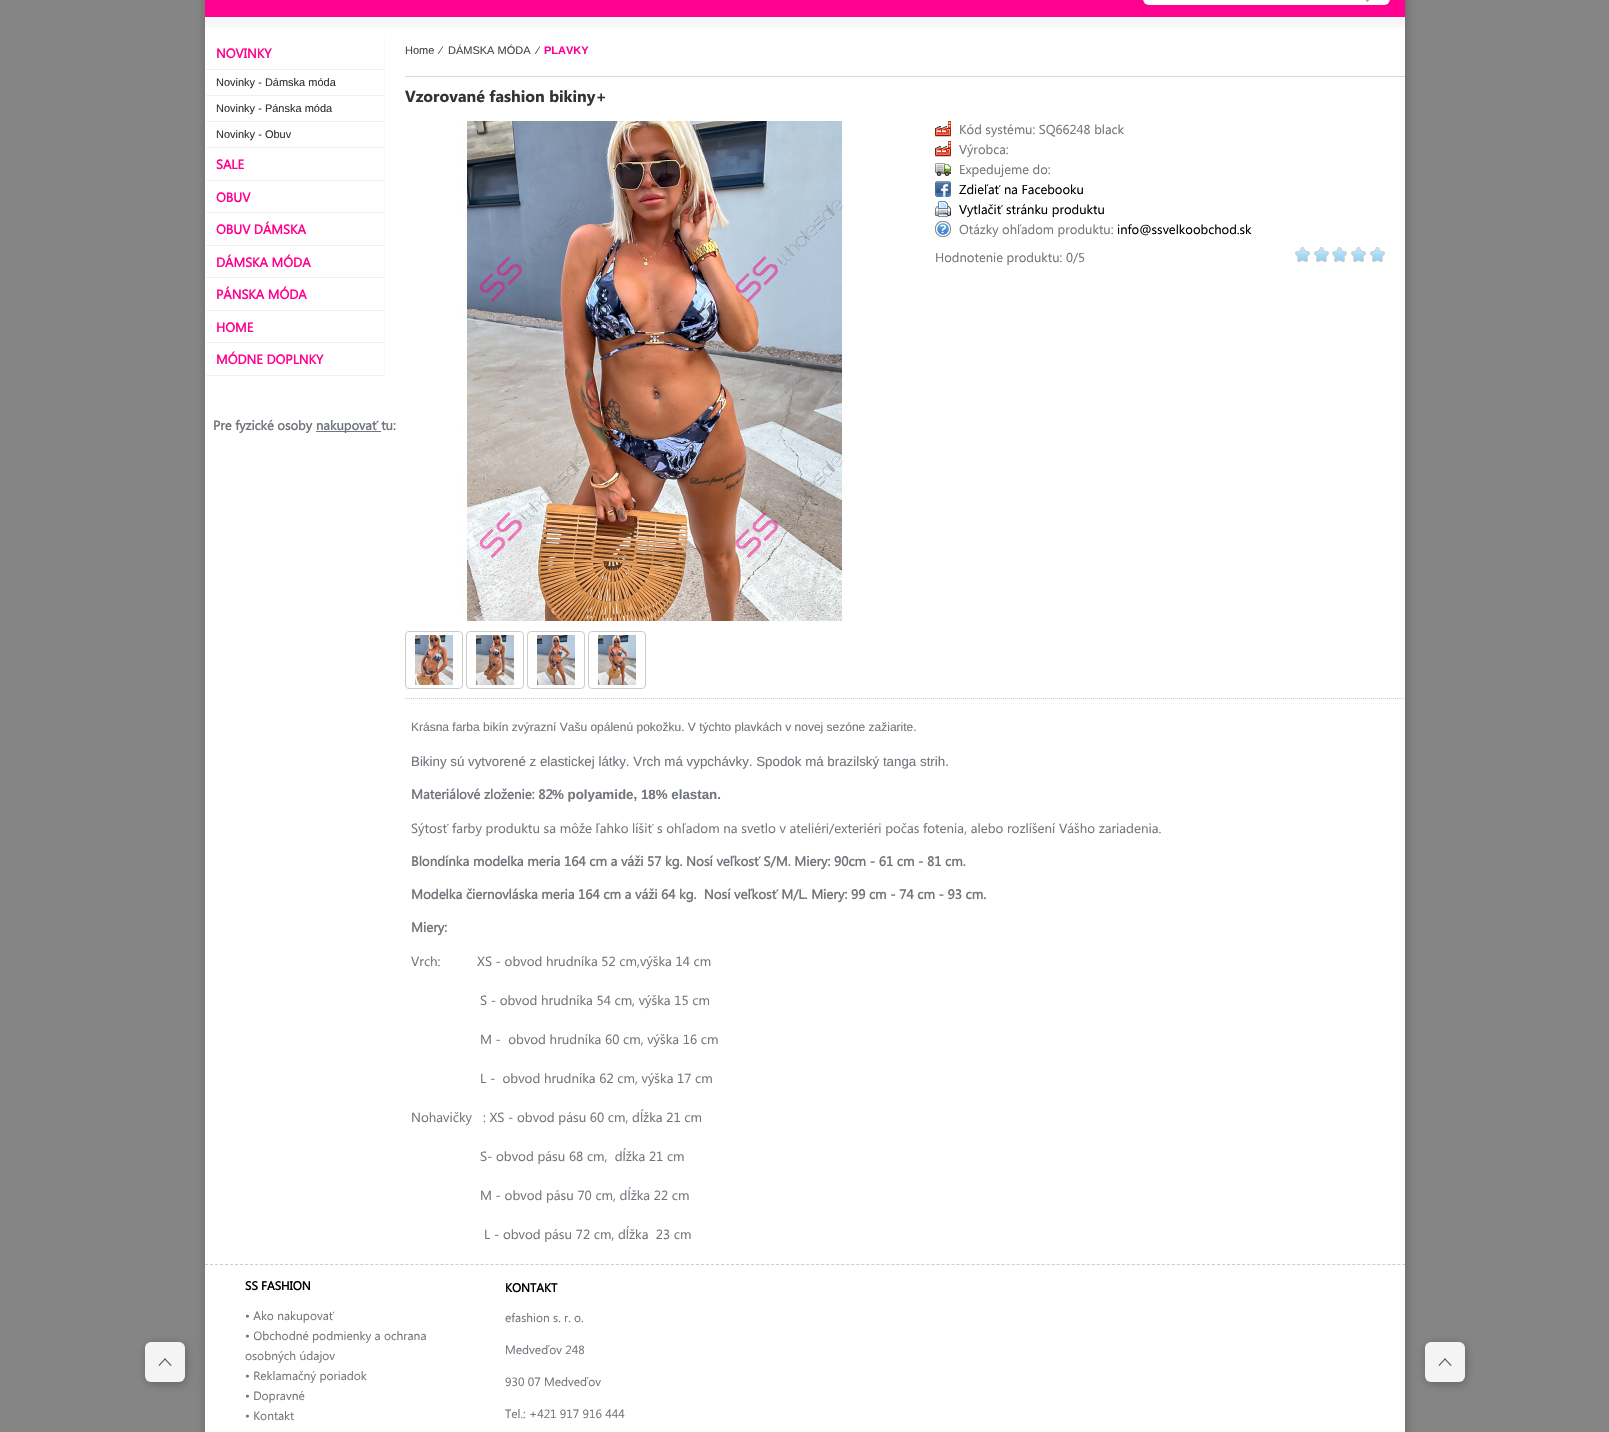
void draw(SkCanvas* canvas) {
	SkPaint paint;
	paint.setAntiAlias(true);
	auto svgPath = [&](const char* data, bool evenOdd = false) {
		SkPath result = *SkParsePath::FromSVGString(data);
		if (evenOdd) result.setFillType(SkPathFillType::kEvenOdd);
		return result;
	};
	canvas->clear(0xff858585);
	paint.setColor(0xff636363);
	paint.setMaskFilter(SkMaskFilter::MakeBlur(kNormal_SkBlurStyle, 5));
	canvas->drawRect(SkRect::MakeXYWH(206, -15, 1200, 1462), paint);
	paint.setMaskFilter(nullptr);
	paint.setColor(0xffffffff);
	canvas->drawRect(SkRect::MakeXYWH(205, 18, 1200, 1414), paint);
	paint.setColor(0xffff0090);
	canvas->drawRect(SkRect::MakeXYWH(205, 0, 1200, 17), paint);
	canvas->drawImageRect(SkImages::DeferredFromEncodedData(SkData::MakeFromFileName("img1.png")), SkRect::MakeXYWH(1143, 0, 221, 5), SkSamplingOptions());
	canvas->drawImageRect(SkImages::DeferredFromEncodedData(SkData::MakeFromFileName("img2.png")), SkRect::MakeXYWH(1364, 0, 26, 5), SkSamplingOptions());
	canvas->drawImageRect(SkImages::DeferredFromEncodedData(SkData::MakeFromFileName("img3.png")), SkRect::MakeXYWH(205, 17, 1200, 11), SkSamplingOptions());
	paint.setColor(0xfff8f8f8);
	canvas->drawRect(SkRect::MakeXYWH(384, 37, 1, 339), paint);
	paint.setColor(0xfff0f0f0);
	canvas->drawRect(SkRect::MakeXYWH(206, 69, 178, 1), paint);
	SkFont f1(fontMgr->matchFamilyStyle("Segoe UI", SkFontStyle::Bold()), 13);
	f1.setSubpixel(true);
	paint.setColor(0xffff0090);
	canvas->drawString("NOVINKY", 216, 58, f1, paint);
	paint.setColor(0xfff0f0f0);
	canvas->drawRect(SkRect::MakeXYWH(206, 95, 178, 1), paint);
	SkFont f2(fontMgr->matchFamilyStyle("Liberation Sans", SkFontStyle::Normal()), 11);
	f2.setSubpixel(true);
	paint.setColor(0xff333333);
	canvas->drawString("Novinky - Dámska móda", 216, 86, f2, paint);
	paint.setColor(0xfff0f0f0);
	canvas->drawRect(SkRect::MakeXYWH(206, 121, 178, 1), paint);
	paint.setColor(0xff333333);
	canvas->drawString("Novinky - Pánska móda", 216, 112, f2, paint);
	paint.setColor(0xfff0f0f0);
	canvas->drawRect(SkRect::MakeXYWH(206, 147, 178, 1), paint);
	paint.setColor(0xff333333);
	canvas->drawString("Novinky - Obuv", 216, 138, f2, paint);
	paint.setColor(0xfff0f0f0);
	canvas->drawRect(SkRect::MakeXYWH(206, 180, 178, 1), paint);
	paint.setColor(0xffff0090);
	canvas->drawString("SALE", 216, 169, f1, paint);
	paint.setColor(0xfff0f0f0);
	canvas->drawRect(SkRect::MakeXYWH(206, 212, 178, 1), paint);
	paint.setColor(0xffff0090);
	canvas->drawString("OBUV", 216, 202, f1, paint);
	paint.setColor(0xfff0f0f0);
	canvas->drawRect(SkRect::MakeXYWH(206, 245, 178, 1), paint);
	paint.setColor(0xffff0090);
	canvas->drawString("OBUV DÁMSKA", 216, 234, f1, paint);
	paint.setColor(0xfff0f0f0);
	canvas->drawRect(SkRect::MakeXYWH(206, 277, 178, 1), paint);
	paint.setColor(0xffff0090);
	canvas->drawString("DÁMSKA MÓDA", 216, 267, f1, paint);
	paint.setColor(0xfff0f0f0);
	canvas->drawRect(SkRect::MakeXYWH(206, 310, 178, 1), paint);
	paint.setColor(0xffff0090);
	canvas->drawString("PÁNSKA MÓDA", 216, 299, f1, paint);
	paint.setColor(0xfff0f0f0);
	canvas->drawRect(SkRect::MakeXYWH(206, 342, 178, 1), paint);
	paint.setColor(0xffff0090);
	canvas->drawString("HOME", 216, 332, f1, paint);
	paint.setColor(0xfff0f0f0);
	canvas->drawRect(SkRect::MakeXYWH(206, 375, 178, 1), paint);
	paint.setColor(0xffff0090);
	canvas->drawString("MÓDNE DOPLNKY", 216, 364, f1, paint);
	paint.setColor(0xff71767c);
	canvas->drawString("Pre fyzické osoby", 213, 430, f1, paint);
	canvas->drawRect(SkRect::MakeXYWH(316, 431, 65, 1), paint);
	canvas->drawString("nakupovať tu:", 316, 430, f1, paint);
	paint.setColor(0xff464646);
	canvas->drawString("Home", 405, 54, f2, paint);
	canvas->drawString("⁄", 440, 54, f2, paint);
	canvas->drawString("DÁMSKA MÓDA", 448, 54, f2, paint);
	canvas->drawString("⁄", 537, 54, f2, paint);
	SkFont f3(fontMgr->matchFamilyStyle("Liberation Sans", SkFontStyle::Bold()), 11);
	f3.setSubpixel(true);
	paint.setColor(0xffff0090);
	canvas->drawString("PLAVKY", 544, 54, f3, paint);
	paint.setColor(0xffd9d9db);
	canvas->drawRect(SkRect::MakeXYWH(405, 76, 1000, 1), paint);
	SkFont f4(fontMgr->matchFamilyStyle("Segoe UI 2", SkFontStyle::Bold()), 16);
	f4.setSubpixel(true);
	paint.setColor(0xff333333);
	canvas->drawString("Vzorované fashion bikiny+", 405, 102, f4, paint);
	canvas->drawImageRect(SkImages::DeferredFromEncodedData(SkData::MakeFromFileName("img4.png")), SkRect::MakeXYWH(461, 121, 384, 500), SkSamplingOptions());
	canvas->drawImageRect(SkImages::DeferredFromEncodedData(SkData::MakeFromFileName("img5.png")), SkRect::MakeXYWH(935, 121, 16, 16), SkSamplingOptions());
	SkFont f5(fontMgr->matchFamilyStyle("Segoe UI", SkFontStyle::Normal()), 13);
	f5.setSubpixel(true);
	paint.setColor(0xff71767c);
	canvas->drawString("Kód systému: SQ66248 black", 959, 134, f5, paint);
	canvas->drawImageRect(SkImages::DeferredFromEncodedData(SkData::MakeFromFileName("img5.png")), SkRect::MakeXYWH(935, 141, 16, 16), SkSamplingOptions());
	canvas->drawString("Výrobca:", 959, 154, f5, paint);
	canvas->drawImageRect(SkImages::DeferredFromEncodedData(SkData::MakeFromFileName("img6.png")), SkRect::MakeXYWH(935, 163, 16, 13), SkSamplingOptions());
	canvas->drawString("Expedujeme do:", 959, 174, f5, paint);
	canvas->drawImageRect(SkImages::DeferredFromEncodedData(SkData::MakeFromFileName("img7.png")), SkRect::MakeXYWH(935, 181, 16, 16), SkSamplingOptions());
	paint.setColor(0xff000000);
	canvas->drawString("Zdieľať na Facebooku", 959, 194, f5, paint);
	canvas->drawImageRect(SkImages::DeferredFromEncodedData(SkData::MakeFromFileName("img8.png")), SkRect::MakeXYWH(935, 201, 16, 16), SkSamplingOptions());
	canvas->drawString("Vytlačiť stránku produktu", 959, 214, f5, paint);
	canvas->drawImageRect(SkImages::DeferredFromEncodedData(SkData::MakeFromFileName("img9.png")), SkRect::MakeXYWH(935, 221, 16, 16), SkSamplingOptions());
	paint.setColor(0xff71767c);
	canvas->drawString("Otázky ohľadom produktu:", 959, 234, f5, paint);
	paint.setColor(0xff000000);
	canvas->drawString("info@ssvelkoobchod.sk", 1117, 234, f5, paint);
	paint.setColor(0xff71767c);
	canvas->drawString("Hodnotenie produktu: 0/5", 935, 262, f5, paint);
	canvas->drawImageRect(SkImages::DeferredFromEncodedData(SkData::MakeFromFileName("img10.png")), SkRect::MakeXYWH(1295, 247, 15, 15), SkSamplingOptions());
	canvas->drawImageRect(SkImages::DeferredFromEncodedData(SkData::MakeFromFileName("img10.png")), SkRect::MakeXYWH(1314, 247, 15, 15), SkSamplingOptions());
	canvas->drawImageRect(SkImages::DeferredFromEncodedData(SkData::MakeFromFileName("img10.png")), SkRect::MakeXYWH(1332, 247, 15, 15), SkSamplingOptions());
	canvas->drawImageRect(SkImages::DeferredFromEncodedData(SkData::MakeFromFileName("img10.png")), SkRect::MakeXYWH(1351, 247, 15, 15), SkSamplingOptions());
	canvas->drawImageRect(SkImages::DeferredFromEncodedData(SkData::MakeFromFileName("img10.png")), SkRect::MakeXYWH(1370, 247, 15, 15), SkSamplingOptions());
	paint.setStroke(true);
	paint.setStrokeWidth(1);
	paint.setColor(0xffcccccc);
	canvas->drawRoundRect(SkRect::MakeXYWH(405.5, 631.5, 57, 57), 3.5, 3.5, paint);
	canvas->drawImageRect(SkImages::DeferredFromEncodedData(SkData::MakeFromFileName("img11.png")), SkRect::MakeXYWH(409, 635, 48, 50), SkSamplingOptions());
	canvas->drawRoundRect(SkRect::MakeXYWH(466.5, 631.5, 57, 57), 3.5, 3.5, paint);
	canvas->drawImageRect(SkImages::DeferredFromEncodedData(SkData::MakeFromFileName("img12.png")), SkRect::MakeXYWH(470, 635, 48, 50), SkSamplingOptions());
	canvas->drawRoundRect(SkRect::MakeXYWH(527.5, 631.5, 57, 57), 3.5, 3.5, paint);
	canvas->drawImageRect(SkImages::DeferredFromEncodedData(SkData::MakeFromFileName("img13.png")), SkRect::MakeXYWH(531, 635, 48, 50), SkSamplingOptions());
	canvas->drawRoundRect(SkRect::MakeXYWH(588.5, 631.5, 57, 57), 3.5, 3.5, paint);
	canvas->drawImageRect(SkImages::DeferredFromEncodedData(SkData::MakeFromFileName("img14.png")), SkRect::MakeXYWH(593, 635, 47, 50), SkSamplingOptions());
	paint.setPathEffect(SkDashPathEffect::Make({{1, 1}}, 0));
	canvas->drawPath(svgPath("M405 698.5H1405"), paint);
	paint.setPathEffect(nullptr);
	SkFont f6(fontMgr->matchFamilyStyle("Liberation Sans", SkFontStyle::Normal()), 12);
	f6.setSubpixel(true);
	paint.setStroke(false);
	paint.setColor(0xff71767c);
	canvas->drawString("Krásna farba bikín zvýrazní Vašu opálenú pokožku. V týchto plavkách v novej sezóne zažiarite.", 411, 731, f6, paint);
	SkFont f7(fontMgr->matchFamilyStyle("Liberation Sans", SkFontStyle::Normal()), 13.33);
	f7.setSubpixel(true);
	canvas->drawString("Bikiny sú vytvorené z elastickej látky. Vrch má vypchávky. Spodok má brazilský tanga strih.", 411, 766, f7, paint);
	SkFont f8(fontMgr->matchFamilyStyle("Segoe UI", SkFontStyle::Bold()), 13.33);
	f8.setSubpixel(true);
	canvas->drawString("Materiálové zloženie: 82", 411, 799, f8, paint);
	SkFont f9(fontMgr->matchFamilyStyle("Liberation Sans", SkFontStyle::Bold()), 13.33);
	f9.setSubpixel(true);
	canvas->drawString("% polyamide, 18% elastan.", 552, 799, f9, paint);
	SkFont f10(fontMgr->matchFamilyStyle("Segoe UI", SkFontStyle::Normal()), 13.33);
	f10.setSubpixel(true);
	canvas->drawString("Sýtosť farby produktu sa môže ľahko líšiť s ohľadom na svetlo v ateliéri/exteriéri počas fotenia, alebo rozlíšení Vášho zariadenia.", 411, 833, f10, paint);
	canvas->drawString("Blondínka modelka meria 164 cm a váži 57 kg. Nosí veľkosť S/M. Miery: 90cm - 61 cm - 81 cm.", 411, 866, f8, paint);
	canvas->drawString("Modelka čiernovláska meria 164 cm a váži 64 kg.  Nosí veľkosť M/L. Miery: 99 cm - 74 cm - 93 cm.", 411, 899, f8, paint);
	canvas->drawString("Miery:", 411, 932, f8, paint);
	canvas->drawString("Vrch:          XS - obvod hrudníka 52 cm,výška 14 cm", 411, 966, f10, paint);
	canvas->drawString("S - obvod hrudníka 54 cm, výška 15 cm", 480, 1005, f10, paint);
	canvas->drawString("M -  obvod hrudníka 60 cm, výška 16 cm", 480, 1044, f10, paint);
	canvas->drawString("L -  obvod hrudníka 62 cm, výška 17 cm", 480, 1083, f10, paint);
	canvas->drawString("Nohavičky   : XS - obvod pásu 60 cm, dĺžka 21 cm", 411, 1122, f10, paint);
	canvas->drawString("S- obvod pásu 68 cm,  dĺžka 21 cm", 480, 1161, f10, paint);
	canvas->drawString("M - obvod pásu 70 cm, dĺžka 22 cm", 480, 1200, f10, paint);
	canvas->drawString("L - obvod pásu 72 cm, dĺžka  23 cm", 484, 1239, f10, paint);
	paint.setColor(0xff636363);
	paint.setMaskFilter(SkMaskFilter::MakeBlur(kNormal_SkBlurStyle, 5));
	canvas->drawRoundRect(SkRect::MakeXYWH(146, 1344, 40, 40), 6, 6, paint);
	paint.setMaskFilter(nullptr);
	paint.setColor(0xfff4f4f4);
	canvas->drawRoundRect(SkRect::MakeXYWH(145, 1342, 40, 40), 6, 6, paint);
	canvas->drawImageRect(SkImages::DeferredFromEncodedData(SkData::MakeFromFileName("img15.png")), SkRect::MakeXYWH(158, 1358, 14, 8), SkSamplingOptions());
	paint.setStroke(true);
	paint.setColor(0xffcdcdcd);
	paint.setPathEffect(SkDashPathEffect::Make({{3, 2.01f}}, 0));
	canvas->drawPath(svgPath("M205 1264.5H1405"), paint);
	paint.setPathEffect(nullptr);
	SkFont f11(fontMgr->matchFamilyStyle("Segoe UI", SkFontStyle::Bold()), 12);
	f11.setSubpixel(true);
	paint.setStroke(false);
	paint.setColor(0xff000000);
	canvas->drawString("SS FASHION", 245, 1290, f11, paint);
	SkFont f12(fontMgr->matchFamilyStyle("Segoe UI", SkFontStyle::Normal()), 12);
	f12.setSubpixel(true);
	paint.setColor(0xff71767c);
	canvas->drawString("• Ako nakupovať", 245, 1320, f12, paint);
	canvas->drawString("• Obchodné podmienky a ochrana", 245, 1340, f12, paint);
	canvas->drawString("osobných údajov", 245, 1360, f12, paint);
	canvas->drawString("• Reklamačný poriadok", 245, 1380, f12, paint);
	canvas->drawString("• Dopravné", 245, 1400, f12, paint);
	canvas->drawString("• Kontakt", 245, 1420, f12, paint);
	paint.setColor(0xff000000);
	canvas->drawString("KONTAKT", 505, 1292, f11, paint);
	paint.setColor(0xff71767c);
	canvas->drawString("efashion s. r. o.", 505, 1322, f12, paint);
	canvas->drawString("Medveďov 248", 505, 1354, f12, paint);
	canvas->drawString("930 07 Medveďov", 505, 1386, f12, paint);
	canvas->drawString("Tel.: +421 917 916 444", 505, 1418, f12, paint);
	paint.setColor(0xff636363);
	paint.setMaskFilter(SkMaskFilter::MakeBlur(kNormal_SkBlurStyle, 5));
	canvas->drawRoundRect(SkRect::MakeXYWH(1426, 1344, 40, 40), 6, 6, paint);
	paint.setMaskFilter(nullptr);
	paint.setColor(0xfff4f4f4);
	canvas->drawRoundRect(SkRect::MakeXYWH(1425, 1342, 40, 40), 6, 6, paint);
	canvas->drawImageRect(SkImages::DeferredFromEncodedData(SkData::MakeFromFileName("img15.png")), SkRect::MakeXYWH(1438, 1358, 14, 8), SkSamplingOptions());
}
